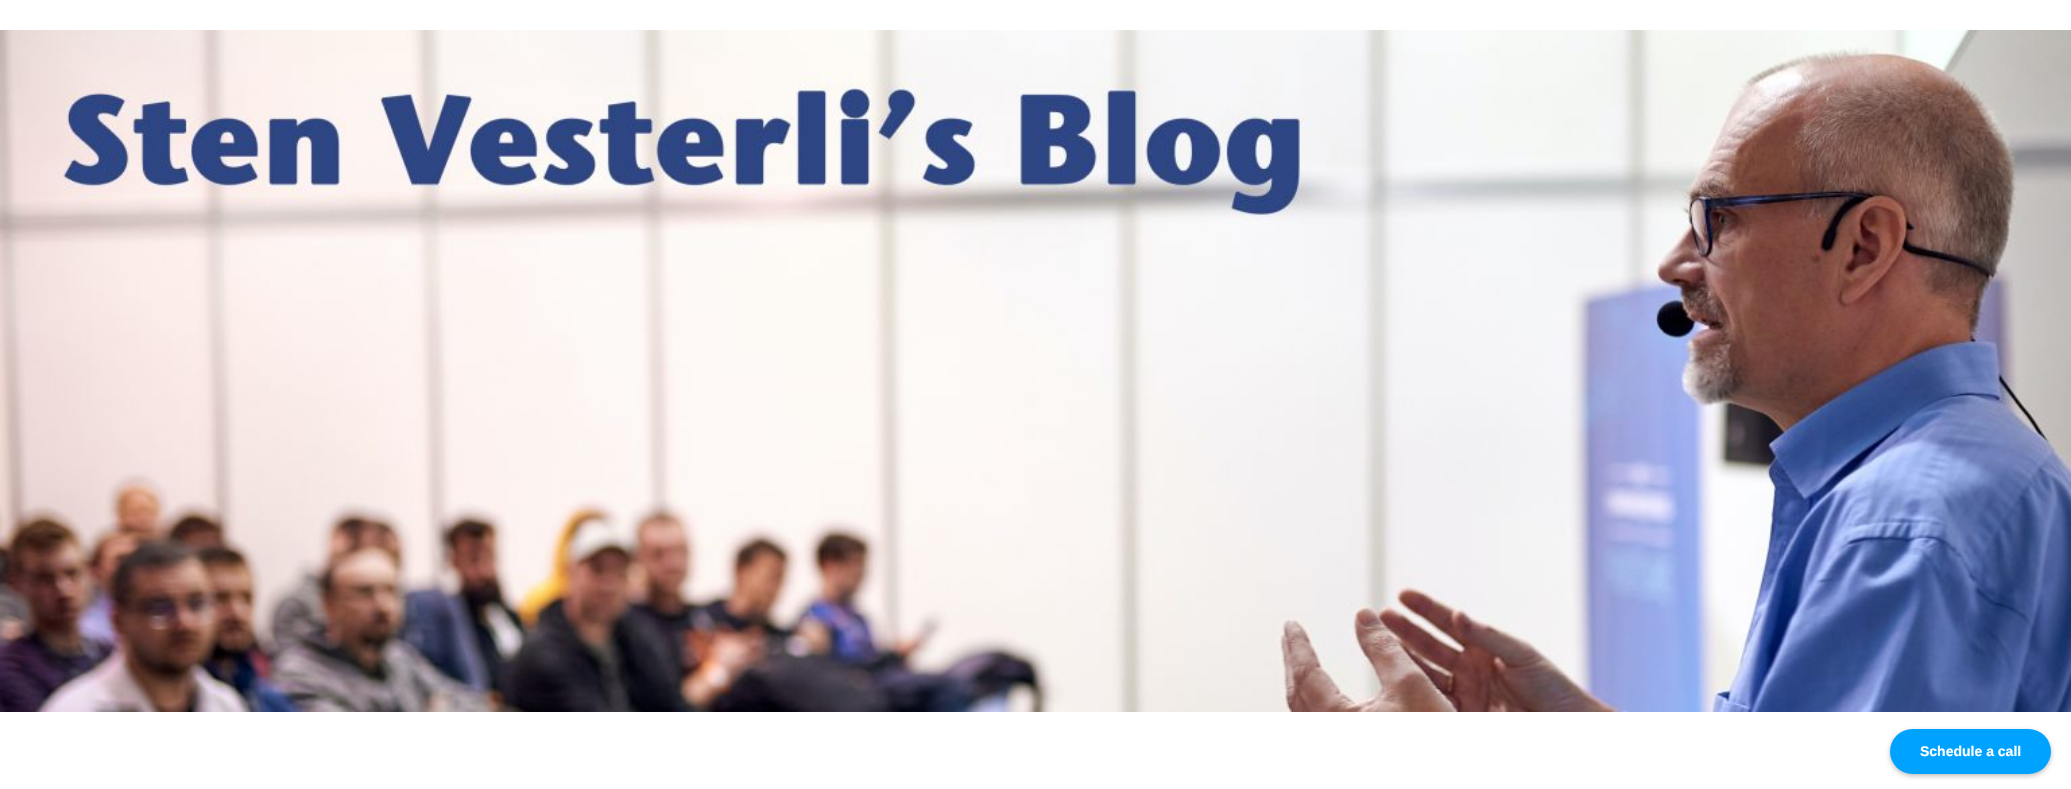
void draw(SkCanvas* canvas) {
	SkPaint paint;
	paint.setAntiAlias(true);
	canvas->clear(0xffffffff);
	canvas->drawImageRect(SkImages::DeferredFromEncodedData(SkData::MakeFromFileName("img1.png")), SkRect::MakeXYWH(0, 30, 2071, 682), SkSamplingOptions());
	paint.setColor(0x40000000);
	paint.setMaskFilter(SkMaskFilter::MakeBlur(kNormal_SkBlurStyle, 2.5));
	canvas->drawRoundRect(SkRect::MakeXYWH(1890, 731, 161, 45), 22.5, 22.5, paint);
	paint.setMaskFilter(nullptr);
	paint.setColor(0xff00a2ff);
	canvas->drawRoundRect(SkRect::MakeXYWH(1890, 729, 161, 45), 22.5, 22.5, paint);
	SkFont f1(fontMgr->matchFamilyStyle("Liberation Sans", SkFontStyle::Bold()), 14);
	f1.setSubpixel(true);
	paint.setColor(0xffffffff);
	canvas->drawString("Schedule a call", 1920, 756, f1, paint);
}
